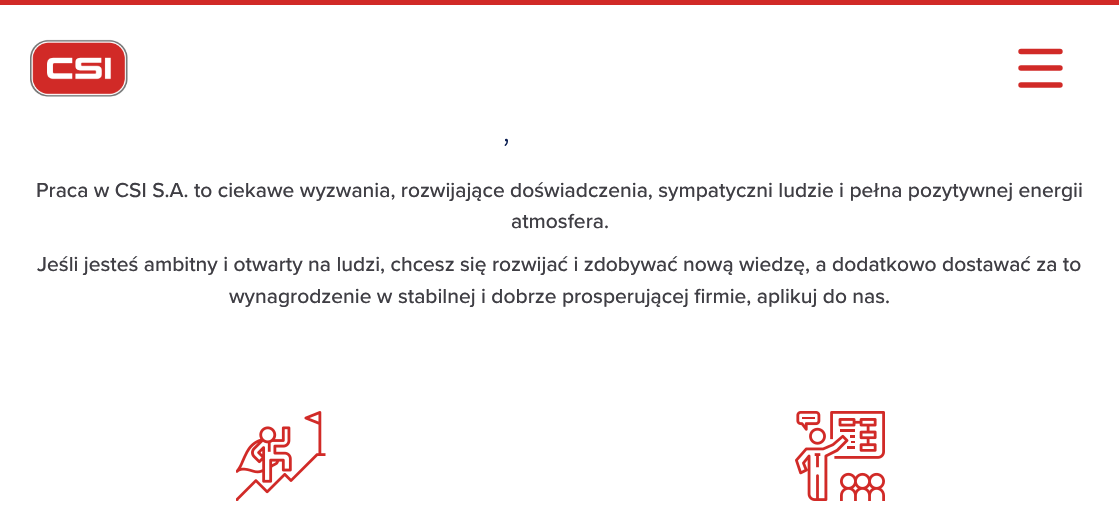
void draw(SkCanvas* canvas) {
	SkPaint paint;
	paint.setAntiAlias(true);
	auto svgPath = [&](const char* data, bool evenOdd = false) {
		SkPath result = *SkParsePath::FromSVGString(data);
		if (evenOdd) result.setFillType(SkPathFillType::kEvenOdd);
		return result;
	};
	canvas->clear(0xffffffff);
	paint.setColor(0xffd12a27);
	canvas->drawRect(SkRect::MakeXYWH(0, 0, 1119, 5), paint);
	canvas->drawImageRect(SkImages::DeferredFromEncodedData(SkData::MakeFromFileName("img1.png")), SkRect::MakeXYWH(30, 39, 98, 58), SkSamplingOptions());
	paint.setStroke(true);
	paint.setStrokeWidth(5.4);
	paint.setStrokeCap(SkPaint::kRound_Cap);
	canvas->drawPath(svgPath("M1021 51.5H1060M1021 68H1060M1021 85H1060"), paint);
	SkFont f1(fontMgr->matchFamilyStyle("Proxima Nova", SkFontStyle(100, SkFontStyle::kNormal_Width, SkFontStyle::kUpright_Slant)), 42);
	f1.setSubpixel(true);
	paint.setStroke(false);
	paint.setColor(0xff091d51);
	canvas->drawString(",", 502, 141, f1, paint);
	SkFont f2(fontMgr->matchFamilyStyle("Proxima Nova", SkFontStyle(500, SkFontStyle::kNormal_Width, SkFontStyle::kUpright_Slant)), 21);
	f2.setSubpixel(true);
	paint.setColor(0xff3f3e44);
	canvas->drawString("Praca w CSI S.A. to ciekawe wyzwania, rozwijające doświadczenia, sympatyczni ludzie i pełna pozytywnej energii", 36, 197, f2, paint);
	canvas->drawString("atmosfera.", 511, 228, f2, paint);
	canvas->drawString("Jeśli jesteś ambitny i otwarty na ludzi, chcesz się rozwijać i zdobywać nową wiedzę, a dodatkowo dostawać za to", 37, 271, f2, paint);
	canvas->drawString("wynagrodzenie w stabilnej i dobrze prosperującej firmie, aplikuj do nas.", 229, 303, f2, paint);
	canvas->drawImageRect(SkImages::DeferredFromEncodedData(SkData::MakeFromFileName("img2.png")), SkRect::MakeXYWH(236, 411, 90, 90), SkSamplingOptions());
	canvas->drawImageRect(SkImages::DeferredFromEncodedData(SkData::MakeFromFileName("img3.png")), SkRect::MakeXYWH(795, 411, 90, 90), SkSamplingOptions());
}
